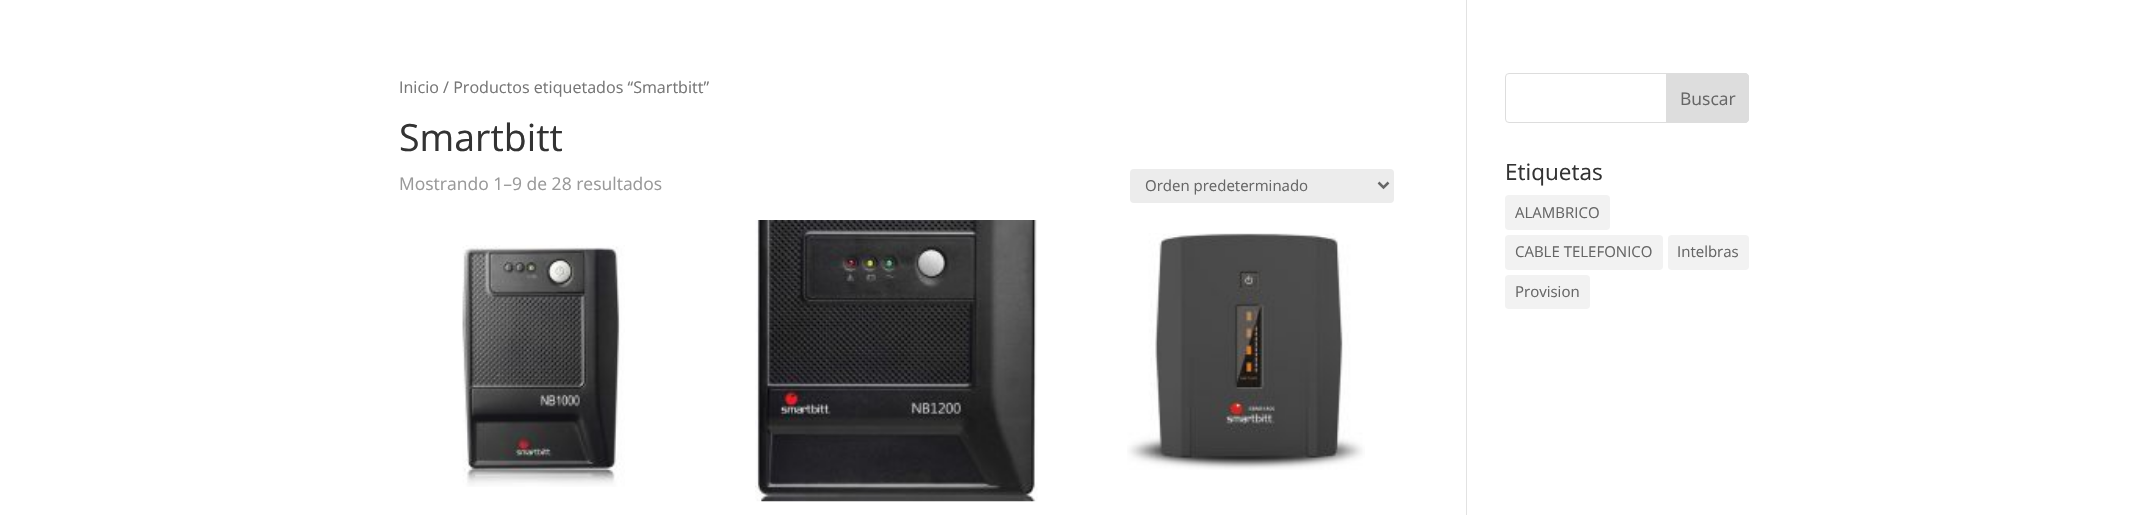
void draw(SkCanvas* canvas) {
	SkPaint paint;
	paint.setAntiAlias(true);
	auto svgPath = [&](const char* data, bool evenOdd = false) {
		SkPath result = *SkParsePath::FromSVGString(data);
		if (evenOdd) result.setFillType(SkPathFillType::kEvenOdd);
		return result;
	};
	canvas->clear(0xffffffff);
	paint.setColor(0xffe2e2e2);
	canvas->drawRect(SkRect::MakeXYWH(1466, 0, 1, 515), paint);
	SkFont f1(fontMgr->matchFamilyStyle("Open Sans", SkFontStyle::Normal()), 16.1);
	f1.setSubpixel(true);
	paint.setColor(0xff767676);
	canvas->drawString("Inicio / Productos etiquetados “Smartbitt”", 399, 93, f1, paint);
	SkFont f2(fontMgr->matchFamilyStyle("Open Sans", SkFontStyle::Normal()), 37.5);
	f2.setSubpixel(true);
	paint.setColor(0xff333333);
	canvas->drawString("Smartbitt", 399, 151, f2, paint);
	SkFont f3(fontMgr->matchFamilyStyle("Open Sans", SkFontStyle::Normal()), 17.5);
	f3.setSubpixel(true);
	paint.setColor(0xff999999);
	canvas->drawString("Mostrando 1–9 de 28 resultados", 399, 190, f3, paint);
	paint.setColor(0xffececec);
	canvas->drawRoundRect(SkRect::MakeXYWH(1130, 169, 264, 34), 4, 4, paint);
	paint.setStroke(true);
	paint.setStrokeWidth(2.5);
	paint.setColor(0xff666666);
	canvas->drawPath(svgPath("M1378.5 182.5L1383.5 187.5L1388.5 182.5"), paint);
	SkFont f4(fontMgr->matchFamilyStyle("Open Sans", SkFontStyle::Normal()), 15);
	f4.setSubpixel(true);
	paint.setStroke(false);
	canvas->drawString("Orden predeterminado", 1145, 191, f4, paint);
	canvas->drawImageRect(SkImages::DeferredFromEncodedData(SkData::MakeFromFileName("img1.png")), SkRect::MakeXYWH(462, 245, 163, 242), SkSamplingOptions());
	canvas->drawImageRect(SkImages::DeferredFromEncodedData(SkData::MakeFromFileName("img2.png")), SkRect::MakeXYWH(755, 220, 283, 282), SkSamplingOptions());
	canvas->drawImageRect(SkImages::DeferredFromEncodedData(SkData::MakeFromFileName("img3.png")), SkRect::MakeXYWH(1127, 233, 238, 237), SkSamplingOptions());
	paint.setStroke(true);
	paint.setStrokeWidth(1);
	paint.setColor(0xffdddddd);
	canvas->drawRoundRect(SkRect::MakeXYWH(1505.5, 73.5, 243, 49), 3.5, 3.5, paint);
	paint.setStroke(false);
	canvas->drawPath(svgPath("M1666.5 73.5H1745C1747 73.5 1748.5 75 1748.5 77V119C1748.5 121 1747 122.5 1745 122.5H1666.5Z"), paint);
	paint.setStroke(true);
	canvas->drawPath(svgPath("M1666.5 73.5H1745C1747 73.5 1748.5 75 1748.5 77V119C1748.5 121 1747 122.5 1745 122.5H1666.5Z"), paint);
	paint.setStroke(false);
	paint.setColor(0xff666666);
	canvas->drawString("Buscar", 1680, 105, f3, paint);
	SkFont f5(fontMgr->matchFamilyStyle("Open Sans", SkFontStyle::Normal()), 22.5);
	f5.setSubpixel(true);
	paint.setColor(0xff333333);
	canvas->drawString("Etiquetas", 1505, 180, f5, paint);
	paint.setColor(0xfff2f2f2);
	canvas->drawRoundRect(SkRect::MakeXYWH(1505, 195, 105, 35), 4, 4, paint);
	paint.setColor(0xff666666);
	canvas->drawString("ALAMBRICO", 1515, 218, f4, paint);
	paint.setColor(0xfff2f2f2);
	canvas->drawRoundRect(SkRect::MakeXYWH(1505, 235, 158, 35), 4, 4, paint);
	paint.setColor(0xff666666);
	canvas->drawString("CABLE TELEFONICO", 1515, 257, f4, paint);
	paint.setColor(0xfff2f2f2);
	canvas->drawRoundRect(SkRect::MakeXYWH(1668, 235, 81, 35), 4, 4, paint);
	paint.setColor(0xff666666);
	canvas->drawString("Intelbras", 1677, 257, f4, paint);
	paint.setColor(0xfff2f2f2);
	canvas->drawRoundRect(SkRect::MakeXYWH(1505, 275, 85, 34), 4, 4, paint);
	paint.setColor(0xff666666);
	canvas->drawString("Provision", 1515, 297, f4, paint);
}
